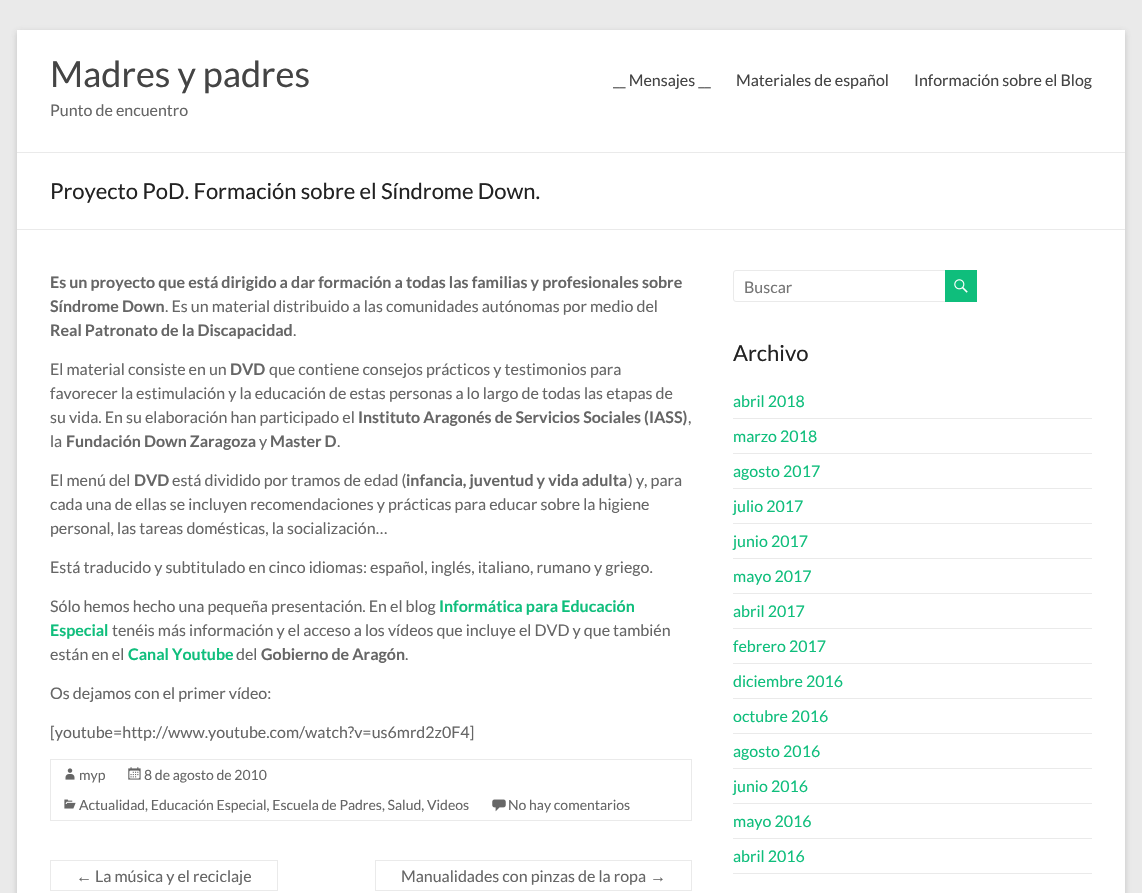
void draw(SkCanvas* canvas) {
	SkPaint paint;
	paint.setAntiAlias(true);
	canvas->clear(0xffeaeaea);
	paint.setColor(0x4d646464);
	paint.setMaskFilter(SkMaskFilter::MakeBlur(kNormal_SkBlurStyle, 3));
	canvas->drawRect(SkRect::MakeXYWH(17, 32, 1108, 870), paint);
	paint.setMaskFilter(nullptr);
	paint.setColor(0xffffffff);
	canvas->drawRect(SkRect::MakeXYWH(17, 30, 1108, 863), paint);
	paint.setColor(0xffeaeaea);
	canvas->drawRect(SkRect::MakeXYWH(17, 152, 1108, 1), paint);
	SkFont f1(fontMgr->matchFamilyStyle("Lato", SkFontStyle::Normal()), 36);
	f1.setSubpixel(true);
	paint.setColor(0xff444444);
	canvas->drawString("Madres y padres", 50, 87, f1, paint);
	SkFont f2(fontMgr->matchFamilyStyle("Lato", SkFontStyle::Normal()), 16);
	f2.setSubpixel(true);
	paint.setColor(0xff666666);
	canvas->drawString("Punto de encuentro", 50, 116, f2, paint);
	paint.setColor(0xff444444);
	canvas->drawString("__ Mensajes __", 613, 86, f2, paint);
	canvas->drawString("Materiales de español", 736, 86, f2, paint);
	canvas->drawString("Información sobre el Blog", 914, 86, f2, paint);
	paint.setColor(0xffeaeaea);
	canvas->drawRect(SkRect::MakeXYWH(17, 229, 1108, 1), paint);
	SkFont f3(fontMgr->matchFamilyStyle("Lato", SkFontStyle::Normal()), 22);
	f3.setSubpixel(true);
	paint.setColor(0xff222222);
	canvas->drawString("Proyecto PoD. Formación sobre el Síndrome Down.", 50, 199, f3, paint);
	SkFont f4(fontMgr->matchFamilyStyle("Lato", SkFontStyle::Bold()), 16);
	f4.setSubpixel(true);
	paint.setColor(0xff666666);
	canvas->drawString("Es un proyecto que está dirigido a dar formación a todas las familias y profesionales sobre", 50, 288, f4, paint);
	canvas->drawString("Síndrome Down", 50, 312, f4, paint);
	canvas->drawString(". Es un material distribuido a las comunidades autónomas por medio del", 165, 312, f2, paint);
	canvas->drawString("Real Patronato de la Discapacidad", 50, 336, f4, paint);
	canvas->drawString(".", 293, 336, f2, paint);
	canvas->drawString("El material consiste en un", 50, 375, f2, paint);
	canvas->drawString("DVD", 230, 375, f4, paint);
	canvas->drawString("que contiene consejos prácticos y testimonios para", 269, 375, f2, paint);
	canvas->drawString("favorecer la estimulación y la educación de estas personas a lo largo de todas las etapas de", 50, 399, f2, paint);
	canvas->drawString("su vida. En su elaboración han participado el", 50, 423, f2, paint);
	canvas->drawString("Instituto Aragonés de Servicios Sociales (IASS)", 358, 423, f4, paint);
	canvas->drawString(",", 688, 423, f2, paint);
	canvas->drawString("la", 50, 447, f2, paint);
	canvas->drawString("Fundación Down Zaragoza", 66, 447, f4, paint);
	canvas->drawString("y", 259, 447, f2, paint);
	canvas->drawString("Master D", 270, 447, f4, paint);
	canvas->drawString(".", 337, 447, f2, paint);
	canvas->drawString("El menú del", 50, 486, f2, paint);
	canvas->drawString("DVD", 134, 486, f4, paint);
	canvas->drawString("está dividido por tramos de edad (", 172, 486, f2, paint);
	canvas->drawString("infancia, juventud y vida adulta", 406, 486, f4, paint);
	canvas->drawString(") y, para", 628, 486, f2, paint);
	canvas->drawString("cada una de ellas se incluyen recomendaciones y prácticas para educar sobre la higiene", 50, 510, f2, paint);
	canvas->drawString("personal, las tareas domésticas, la socialización…", 50, 534, f2, paint);
	canvas->drawString("Está traducido y subtitulado en cinco idiomas: español, inglés, italiano, rumano y griego.", 50, 573, f2, paint);
	canvas->drawString("Sólo hemos hecho una pequeña presentación. En el blog", 50, 612, f2, paint);
	paint.setColor(0xff0fbe7c);
	canvas->drawString("Informática para Educación", 439, 612, f4, paint);
	canvas->drawString("Especial", 50, 636, f4, paint);
	paint.setColor(0xff666666);
	canvas->drawString("tenéis más información y el acceso a los vídeos que incluye el DVD y que también", 112, 636, f2, paint);
	canvas->drawString("están en el", 50, 660, f2, paint);
	paint.setColor(0xff0fbe7c);
	canvas->drawString("Canal Youtube", 128, 660, f4, paint);
	paint.setColor(0xff666666);
	canvas->drawString("del", 236, 660, f2, paint);
	canvas->drawString("Gobierno de Aragón", 261, 660, f4, paint);
	canvas->drawString(".", 405, 660, f2, paint);
	canvas->drawString("Os dejamos con el primer vídeo:", 50, 699, f2, paint);
	canvas->drawString("[youtube=http://www.youtube.com/watch?v=us6mrd2z0F4]", 50, 738, f2, paint);
	paint.setStroke(true);
	paint.setStrokeWidth(1);
	paint.setColor(0xffeaeaea);
	canvas->drawRect(SkRect::MakeXYWH(50.5, 759.5, 641, 61), paint);
	canvas->drawImageRect(SkImages::DeferredFromEncodedData(SkData::MakeFromFileName("img1.png")), SkRect::MakeXYWH(65, 768, 10, 12), SkSamplingOptions());
	SkFont f5(fontMgr->matchFamilyStyle("Lato", SkFontStyle::Normal()), 14);
	f5.setSubpixel(true);
	paint.setStroke(false);
	paint.setColor(0xff666666);
	canvas->drawString("myp", 79, 780, f5, paint);
	canvas->drawImageRect(SkImages::DeferredFromEncodedData(SkData::MakeFromFileName("img2.png")), SkRect::MakeXYWH(128, 767, 13, 13), SkSamplingOptions());
	canvas->drawString("8 de agosto de 2010", 144, 780, f5, paint);
	canvas->drawImageRect(SkImages::DeferredFromEncodedData(SkData::MakeFromFileName("img3.png")), SkRect::MakeXYWH(64, 799, 12, 10), SkSamplingOptions());
	canvas->drawString("Actualidad, Educación Especial, Escuela de Padres, Salud, Videos", 79, 810, f5, paint);
	canvas->drawImageRect(SkImages::DeferredFromEncodedData(SkData::MakeFromFileName("img4.png")), SkRect::MakeXYWH(492, 799, 14, 13), SkSamplingOptions());
	canvas->drawString("No hay comentarios", 508, 810, f5, paint);
	SkFont f6(fontMgr->matchFamilyStyle("Liberation Sans", SkFontStyle::Normal()), 16);
	f6.setSubpixel(true);
	canvas->drawString("←", 76, 882, f6, paint);
	paint.setColor(0xffeaeaea);
	canvas->drawRect(SkRect::MakeXYWH(50, 890, 42, 1), paint);
	canvas->drawRect(SkRect::MakeXYWH(50, 860, 228, 1), paint);
	canvas->drawRect(SkRect::MakeXYWH(50, 860, 1, 31), paint);
	canvas->drawRect(SkRect::MakeXYWH(277, 860, 1, 31), paint);
	canvas->drawRect(SkRect::MakeXYWH(92, 890, 186, 1), paint);
	paint.setColor(0xff666666);
	canvas->drawString("La música y el reciclaje", 95, 882, f2, paint);
	canvas->drawString("Manualidades con pinzas de la ropa", 401, 882, f2, paint);
	paint.setColor(0xffeaeaea);
	canvas->drawRect(SkRect::MakeXYWH(375, 860, 317, 1), paint);
	canvas->drawRect(SkRect::MakeXYWH(375, 890, 275, 1), paint);
	canvas->drawRect(SkRect::MakeXYWH(375, 860, 1, 31), paint);
	paint.setColor(0xff666666);
	canvas->drawString("→", 650, 882, f6, paint);
	paint.setColor(0xffeaeaea);
	canvas->drawRect(SkRect::MakeXYWH(691, 860, 1, 31), paint);
	canvas->drawRect(SkRect::MakeXYWH(650, 890, 42, 1), paint);
	paint.setStroke(true);
	canvas->drawRoundRect(SkRect::MakeXYWH(733.5, 270.5, 214, 31), 2.5, 2.5, paint);
	paint.setStroke(false);
	paint.setColor(0xff757575);
	canvas->drawString("Buscar", 744, 293, f2, paint);
	paint.setColor(0xff0fbe7c);
	canvas->drawRect(SkRect::MakeXYWH(945, 270, 32, 32), paint);
	canvas->drawImageRect(SkImages::DeferredFromEncodedData(SkData::MakeFromFileName("img5.png")), SkRect::MakeXYWH(954, 279, 14, 14), SkSamplingOptions());
	paint.setColor(0xff222222);
	canvas->drawString("Archivo", 733, 361, f3, paint);
	paint.setColor(0xffeaeaea);
	canvas->drawRect(SkRect::MakeXYWH(733, 418, 359, 1), paint);
	paint.setColor(0xff0fbe7c);
	canvas->drawString("abril 2018", 733, 407, f2, paint);
	paint.setColor(0xffeaeaea);
	canvas->drawRect(SkRect::MakeXYWH(733, 453, 359, 1), paint);
	paint.setColor(0xff0fbe7c);
	canvas->drawString("marzo 2018", 733, 442, f2, paint);
	paint.setColor(0xffeaeaea);
	canvas->drawRect(SkRect::MakeXYWH(733, 488, 359, 1), paint);
	paint.setColor(0xff0fbe7c);
	canvas->drawString("agosto 2017", 733, 477, f2, paint);
	paint.setColor(0xffeaeaea);
	canvas->drawRect(SkRect::MakeXYWH(733, 523, 359, 1), paint);
	paint.setColor(0xff0fbe7c);
	canvas->drawString("julio 2017", 733, 512, f2, paint);
	paint.setColor(0xffeaeaea);
	canvas->drawRect(SkRect::MakeXYWH(733, 558, 359, 1), paint);
	paint.setColor(0xff0fbe7c);
	canvas->drawString("junio 2017", 733, 547, f2, paint);
	paint.setColor(0xffeaeaea);
	canvas->drawRect(SkRect::MakeXYWH(733, 593, 359, 1), paint);
	paint.setColor(0xff0fbe7c);
	canvas->drawString("mayo 2017", 733, 582, f2, paint);
	paint.setColor(0xffeaeaea);
	canvas->drawRect(SkRect::MakeXYWH(733, 628, 359, 1), paint);
	paint.setColor(0xff0fbe7c);
	canvas->drawString("abril 2017", 733, 617, f2, paint);
	paint.setColor(0xffeaeaea);
	canvas->drawRect(SkRect::MakeXYWH(733, 663, 359, 1), paint);
	paint.setColor(0xff0fbe7c);
	canvas->drawString("febrero 2017", 733, 652, f2, paint);
	paint.setColor(0xffeaeaea);
	canvas->drawRect(SkRect::MakeXYWH(733, 698, 359, 1), paint);
	paint.setColor(0xff0fbe7c);
	canvas->drawString("diciembre 2016", 733, 687, f2, paint);
	paint.setColor(0xffeaeaea);
	canvas->drawRect(SkRect::MakeXYWH(733, 733, 359, 1), paint);
	paint.setColor(0xff0fbe7c);
	canvas->drawString("octubre 2016", 733, 722, f2, paint);
	paint.setColor(0xffeaeaea);
	canvas->drawRect(SkRect::MakeXYWH(733, 768, 359, 1), paint);
	paint.setColor(0xff0fbe7c);
	canvas->drawString("agosto 2016", 733, 757, f2, paint);
	paint.setColor(0xffeaeaea);
	canvas->drawRect(SkRect::MakeXYWH(733, 803, 359, 1), paint);
	paint.setColor(0xff0fbe7c);
	canvas->drawString("junio 2016", 733, 792, f2, paint);
	paint.setColor(0xffeaeaea);
	canvas->drawRect(SkRect::MakeXYWH(733, 838, 359, 1), paint);
	paint.setColor(0xff0fbe7c);
	canvas->drawString("mayo 2016", 733, 827, f2, paint);
	paint.setColor(0xffeaeaea);
	canvas->drawRect(SkRect::MakeXYWH(733, 873, 359, 1), paint);
	paint.setColor(0xff0fbe7c);
	canvas->drawString("abril 2016", 733, 862, f2, paint);
}
